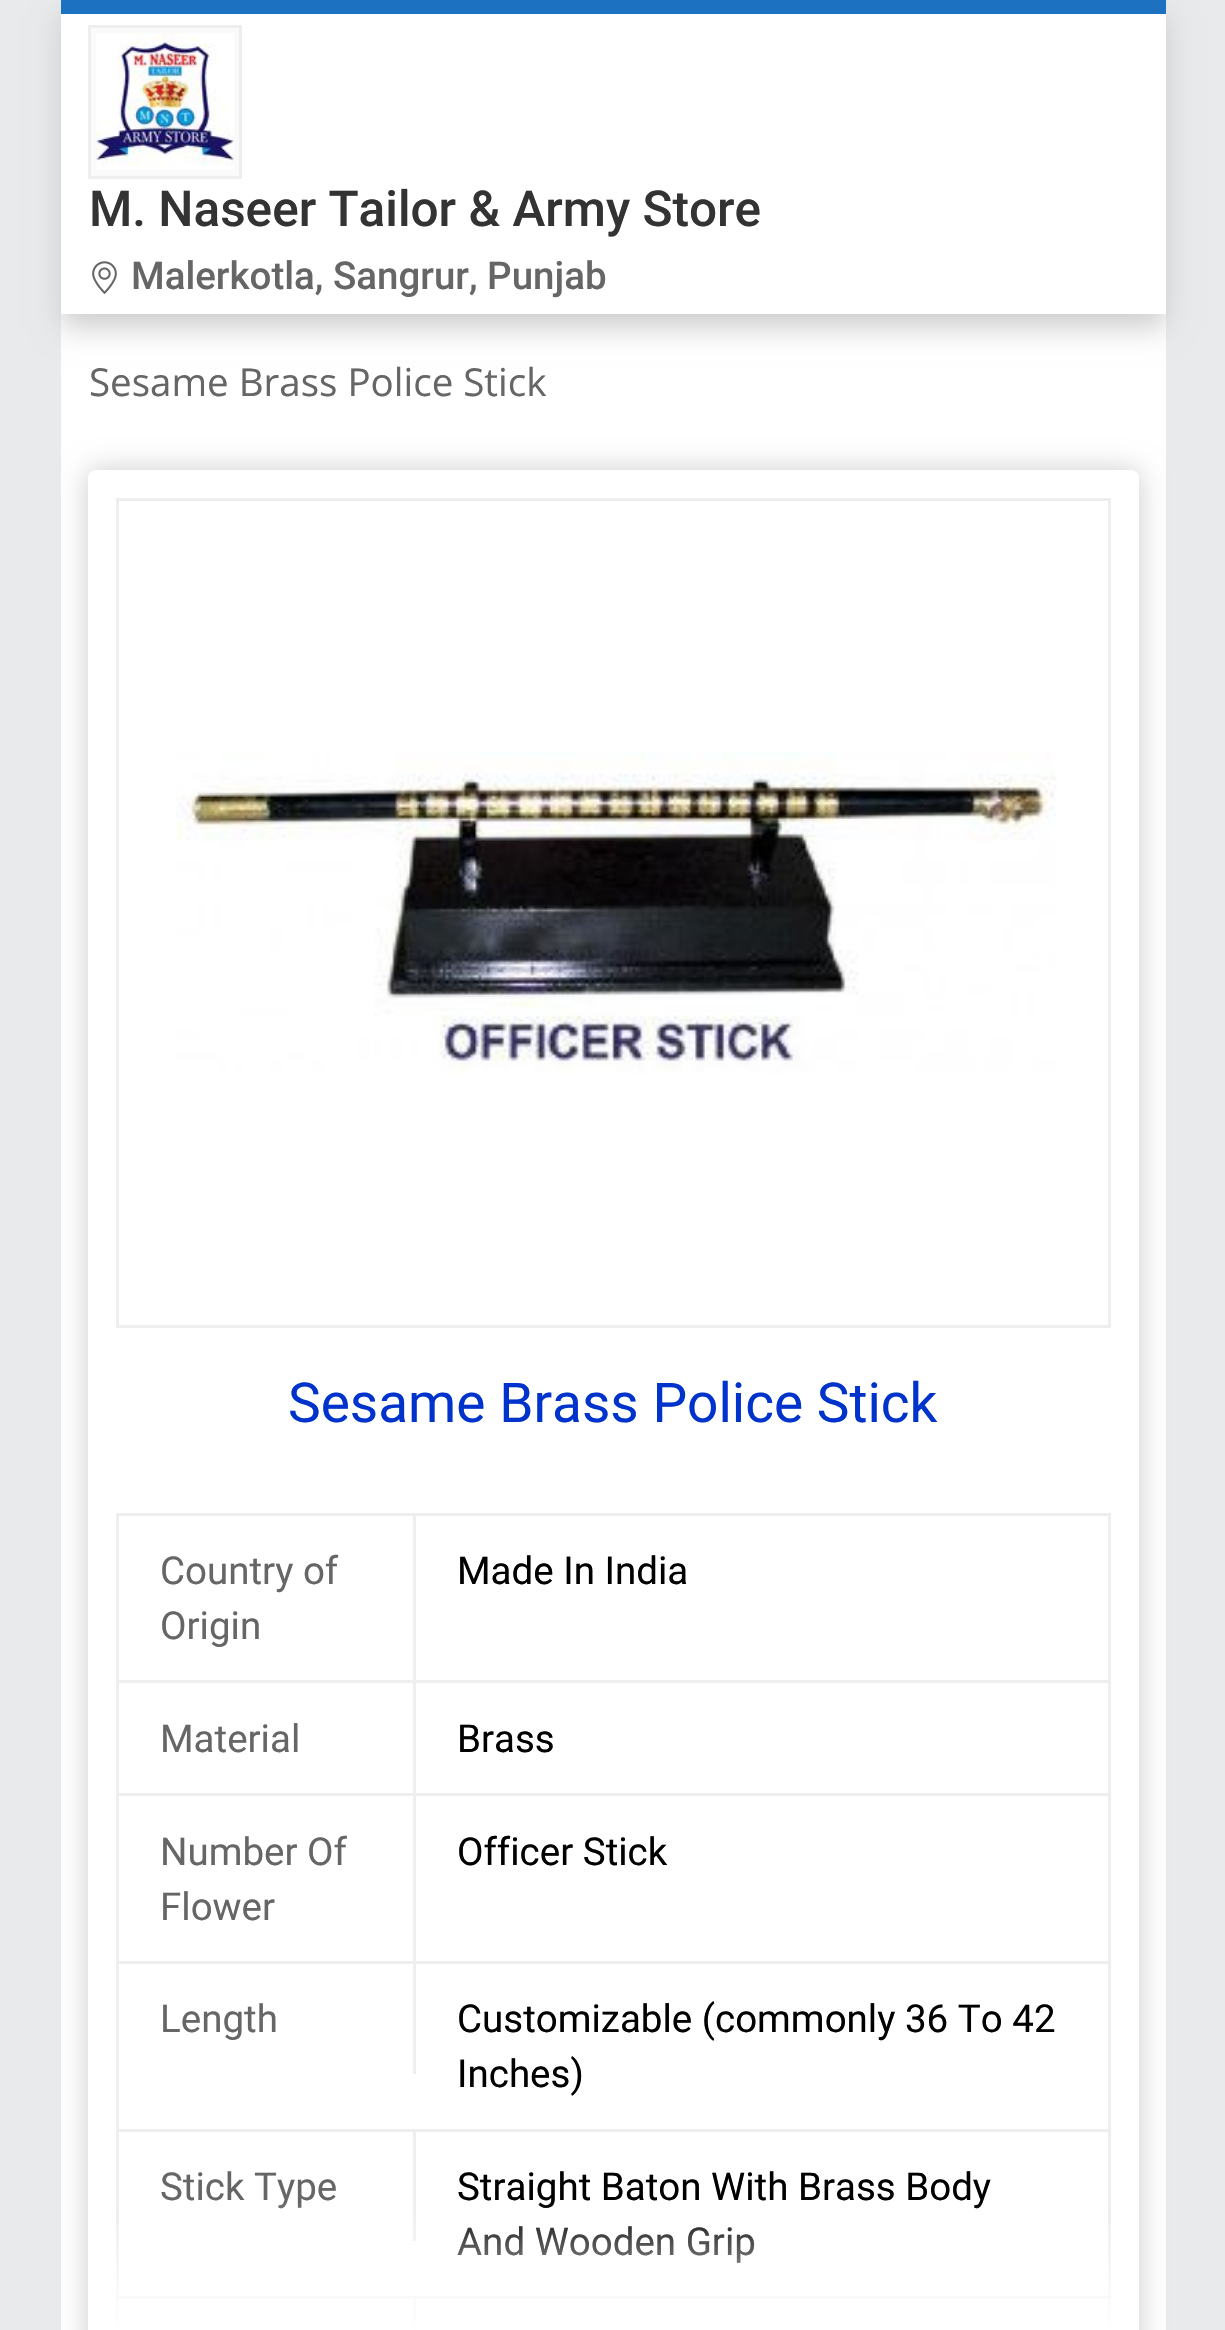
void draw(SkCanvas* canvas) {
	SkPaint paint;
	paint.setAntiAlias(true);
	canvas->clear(0xffe9eaec);
	paint.setColor(0xffffffff);
	canvas->drawRect(SkRect::MakeXYWH(61, 314, 1105, 2016), paint);
	paint.setColor(0xffcccccc);
	paint.setMaskFilter(SkMaskFilter::MakeBlur(kNormal_SkBlurStyle, 14));
	canvas->drawRect(SkRect::MakeXYWH(61, 14, 1105, 313), paint);
	paint.setMaskFilter(nullptr);
	paint.setColor(0xffffffff);
	canvas->drawRect(SkRect::MakeXYWH(61, 14, 1105, 300), paint);
	paint.setColor(0xff1c71c1);
	canvas->drawRect(SkRect::MakeXYWH(61, 0, 1105, 14), paint);
	paint.setColor(0xfffafafa);
	canvas->drawRect(SkRect::MakeXYWH(89.5, 26.5, 151, 151), paint);
	paint.setStroke(true);
	paint.setStrokeWidth(3);
	paint.setColor(0xffeeeeee);
	canvas->drawRect(SkRect::MakeXYWH(89.5, 26.5, 151, 151), paint);
	canvas->drawImageRect(SkImages::DeferredFromEncodedData(SkData::MakeFromFileName("img1.png")), SkRect::MakeXYWH(96, 33, 138, 137), SkSamplingOptions());
	SkFont f1(fontMgr->matchFamilyStyle("Roboto", SkFontStyle(500, SkFontStyle::kNormal_Width, SkFontStyle::kUpright_Slant)), 49.5);
	f1.setSubpixel(true);
	paint.setStroke(false);
	paint.setColor(0xff333333);
	canvas->drawString("M. Naseer Tailor & Army Store", 89, 226, f1, paint);
	canvas->drawImageRect(SkImages::DeferredFromEncodedData(SkData::MakeFromFileName("img2.png")), SkRect::MakeXYWH(92, 261, 25, 33), SkSamplingOptions());
	SkFont f2(fontMgr->matchFamilyStyle("Roboto", SkFontStyle(500, SkFontStyle::kNormal_Width, SkFontStyle::kUpright_Slant)), 38.5);
	f2.setSubpixel(true);
	paint.setColor(0xff666666);
	canvas->drawString("Malerkotla, Sangrur, Punjab", 131, 289, f2, paint);
	SkFont f3(fontMgr->matchFamilyStyle("Open Sans", SkFontStyle::Normal()), 38.5);
	f3.setSubpixel(true);
	canvas->drawString("Sesame Brass Police Stick", 89, 396, f3, paint);
	paint.setColor(0xffcccccc);
	paint.setMaskFilter(SkMaskFilter::MakeBlur(kNormal_SkBlurStyle, 14));
	canvas->drawRoundRect(SkRect::MakeXYWH(88, 470, 1051, 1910), 8, 8, paint);
	paint.setMaskFilter(nullptr);
	paint.setColor(0xffffffff);
	canvas->drawRoundRect(SkRect::MakeXYWH(88, 470, 1051, 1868), 8, 8, paint);
	paint.setStroke(true);
	paint.setColor(0xffeeeeee);
	canvas->drawRect(SkRect::MakeXYWH(117.5, 499.5, 992, 827), paint);
	canvas->drawImageRect(SkImages::DeferredFromEncodedData(SkData::MakeFromFileName("img3.png")), SkRect::MakeXYWH(175, 752, 882, 322), SkSamplingOptions());
	SkFont f4(fontMgr->matchFamilyStyle("Roboto", SkFontStyle::Normal()), 55);
	f4.setSubpixel(true);
	paint.setStroke(false);
	paint.setColor(0xff0033cc);
	canvas->drawString("Sesame Brass Police Stick", 288, 1422, f4, paint);
	paint.setStroke(true);
	paint.setColor(0xffeeeeee);
	canvas->drawRect(SkRect::MakeXYWH(117.5, 1514.5, 992, 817), paint);
	paint.setStroke(false);
	canvas->drawRect(SkRect::MakeXYWH(118, 1680, 990, 3), paint);
	canvas->drawRect(SkRect::MakeXYWH(413, 1515, 3, 165), paint);
	SkFont f5(fontMgr->matchFamilyStyle("Roboto", SkFontStyle::Normal()), 38.5);
	f5.setSubpixel(true);
	paint.setColor(0xff666666);
	canvas->drawString("Country of", 160, 1584, f5, paint);
	canvas->drawString("Origin", 160, 1639, f5, paint);
	paint.setColor(0xff000000);
	canvas->drawString("Made In India", 457, 1584, f5, paint);
	paint.setColor(0xffeeeeee);
	canvas->drawRect(SkRect::MakeXYWH(118, 1793, 990, 3), paint);
	canvas->drawRect(SkRect::MakeXYWH(413, 1683, 3, 110), paint);
	paint.setColor(0xff666666);
	canvas->drawString("Material", 160, 1752, f5, paint);
	paint.setColor(0xff000000);
	canvas->drawString("Brass", 457, 1752, f5, paint);
	paint.setColor(0xffeeeeee);
	canvas->drawRect(SkRect::MakeXYWH(118, 1961, 990, 3), paint);
	canvas->drawRect(SkRect::MakeXYWH(413, 1796, 3, 165), paint);
	paint.setColor(0xff666666);
	canvas->drawString("Number Of", 160, 1865, f5, paint);
	canvas->drawString("Flower", 160, 1920, f5, paint);
	paint.setColor(0xff000000);
	canvas->drawString("Officer Stick", 457, 1865, f5, paint);
	paint.setColor(0xffeeeeee);
	canvas->drawRect(SkRect::MakeXYWH(118, 2129, 990, 3), paint);
	canvas->drawRect(SkRect::MakeXYWH(413, 1964, 3, 110), paint);
	paint.setColor(0xff666666);
	canvas->drawString("Length", 160, 2032, f5, paint);
	paint.setColor(0xff000000);
	canvas->drawString("Customizable (commonly 36 To 42", 457, 2032, f5, paint);
	canvas->drawString("Inches)", 457, 2087, f5, paint);
	paint.setColor(0xffeeeeee);
	canvas->drawRect(SkRect::MakeXYWH(118, 2296, 990, 3), paint);
	canvas->drawRect(SkRect::MakeXYWH(413, 2131, 3, 110), paint);
	paint.setColor(0xff666666);
	canvas->drawString("Stick Type", 160, 2200, f5, paint);
	paint.setColor(0xff000000);
	canvas->drawString("Straight Baton With Brass Body", 457, 2200, f5, paint);
	canvas->drawString("And Wooden Grip", 457, 2255, f5, paint);
	paint.setColor(0xffeeeeee);
	canvas->drawRect(SkRect::MakeXYWH(413, 2299, 3, 31), paint);
	{
		const SkColor colors[] = {0x00ffffff, 0xffffffff};
		const float stops[] = {0, 1};
		const SkPoint ends[] = {{613, 2200}, {613, 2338}};
		paint.setShader(SkGradientShader::MakeLinear(ends, colors, stops, 2, SkTileMode::kClamp));
		paint.setAlpha(255);
	}
	canvas->drawRect(SkRect::MakeXYWH(116, 2203, 995, 127), paint);
}
